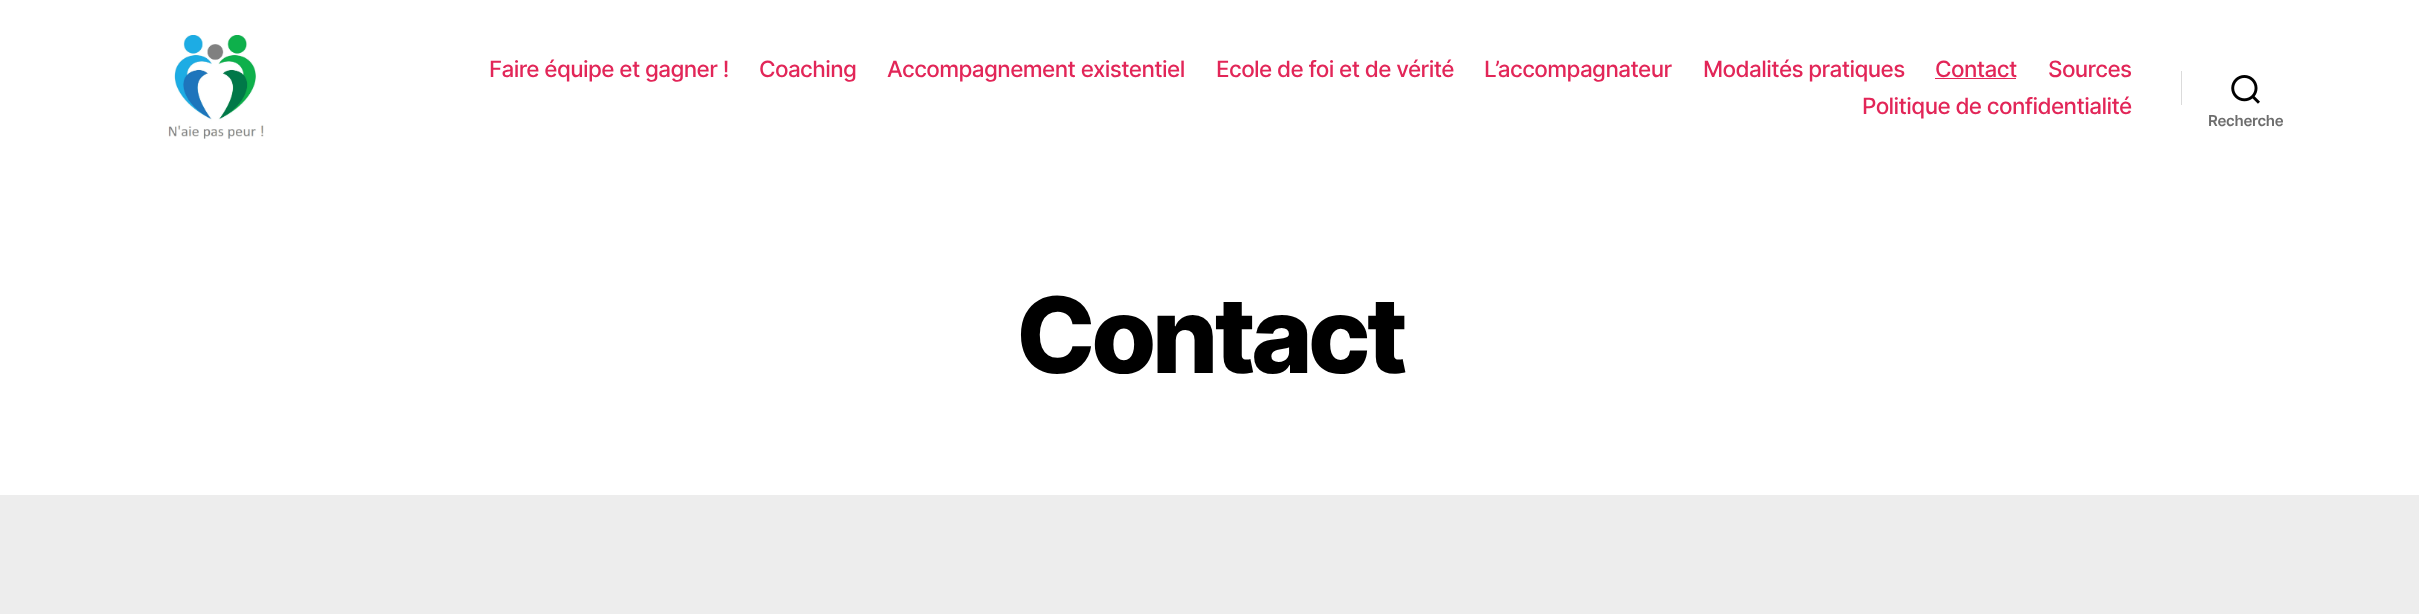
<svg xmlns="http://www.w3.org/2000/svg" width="2419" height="614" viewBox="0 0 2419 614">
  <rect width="100%" height="100%" fill="#ededed"/>
  <path d="M0 0h2419v495H0z" fill="#fff"/>
  <image x="168" y="35" width="96" height="104" href="img/1.png"/>
  <path d="M1935 78h81v1H1935z" fill="#e22658"/>
  <path d="M2181 71h1v34H2181z" fill="#dbdbdb"/>
  <image x="2231" y="75" width="29" height="29" href="img/2.png"/>
  <g font-family="Inter" font-size="22.5" font-weight="500" letter-spacing="-0.6" fill="#e22658">
    <text x="489" y="77">Faire équipe et gagner !</text>
    <text x="759" y="77">Coaching</text>
    <text x="887" y="77">Accompagnement existentiel</text>
    <text x="1216" y="77">Ecole de foi et de vérité</text>
    <text x="1484" y="77">L’accompagnateur</text>
    <text x="1703" y="77">Modalités pratiques</text>
    <text x="1935" y="77">Contact</text>
    <text x="2048" y="77">Sources</text>
    <text x="1862" y="114">Politique de confidentialité</text>
  </g>
  <text x="2208" y="126" font-family="Inter" font-size="15" font-weight="600" letter-spacing="-0.25" fill="#6d6d6d">Recherche</text>
  <text x="1016" y="373" font-family="Inter" font-size="105" font-weight="800" letter-spacing="-4.5" fill="#000">Contact</text>
</svg>
